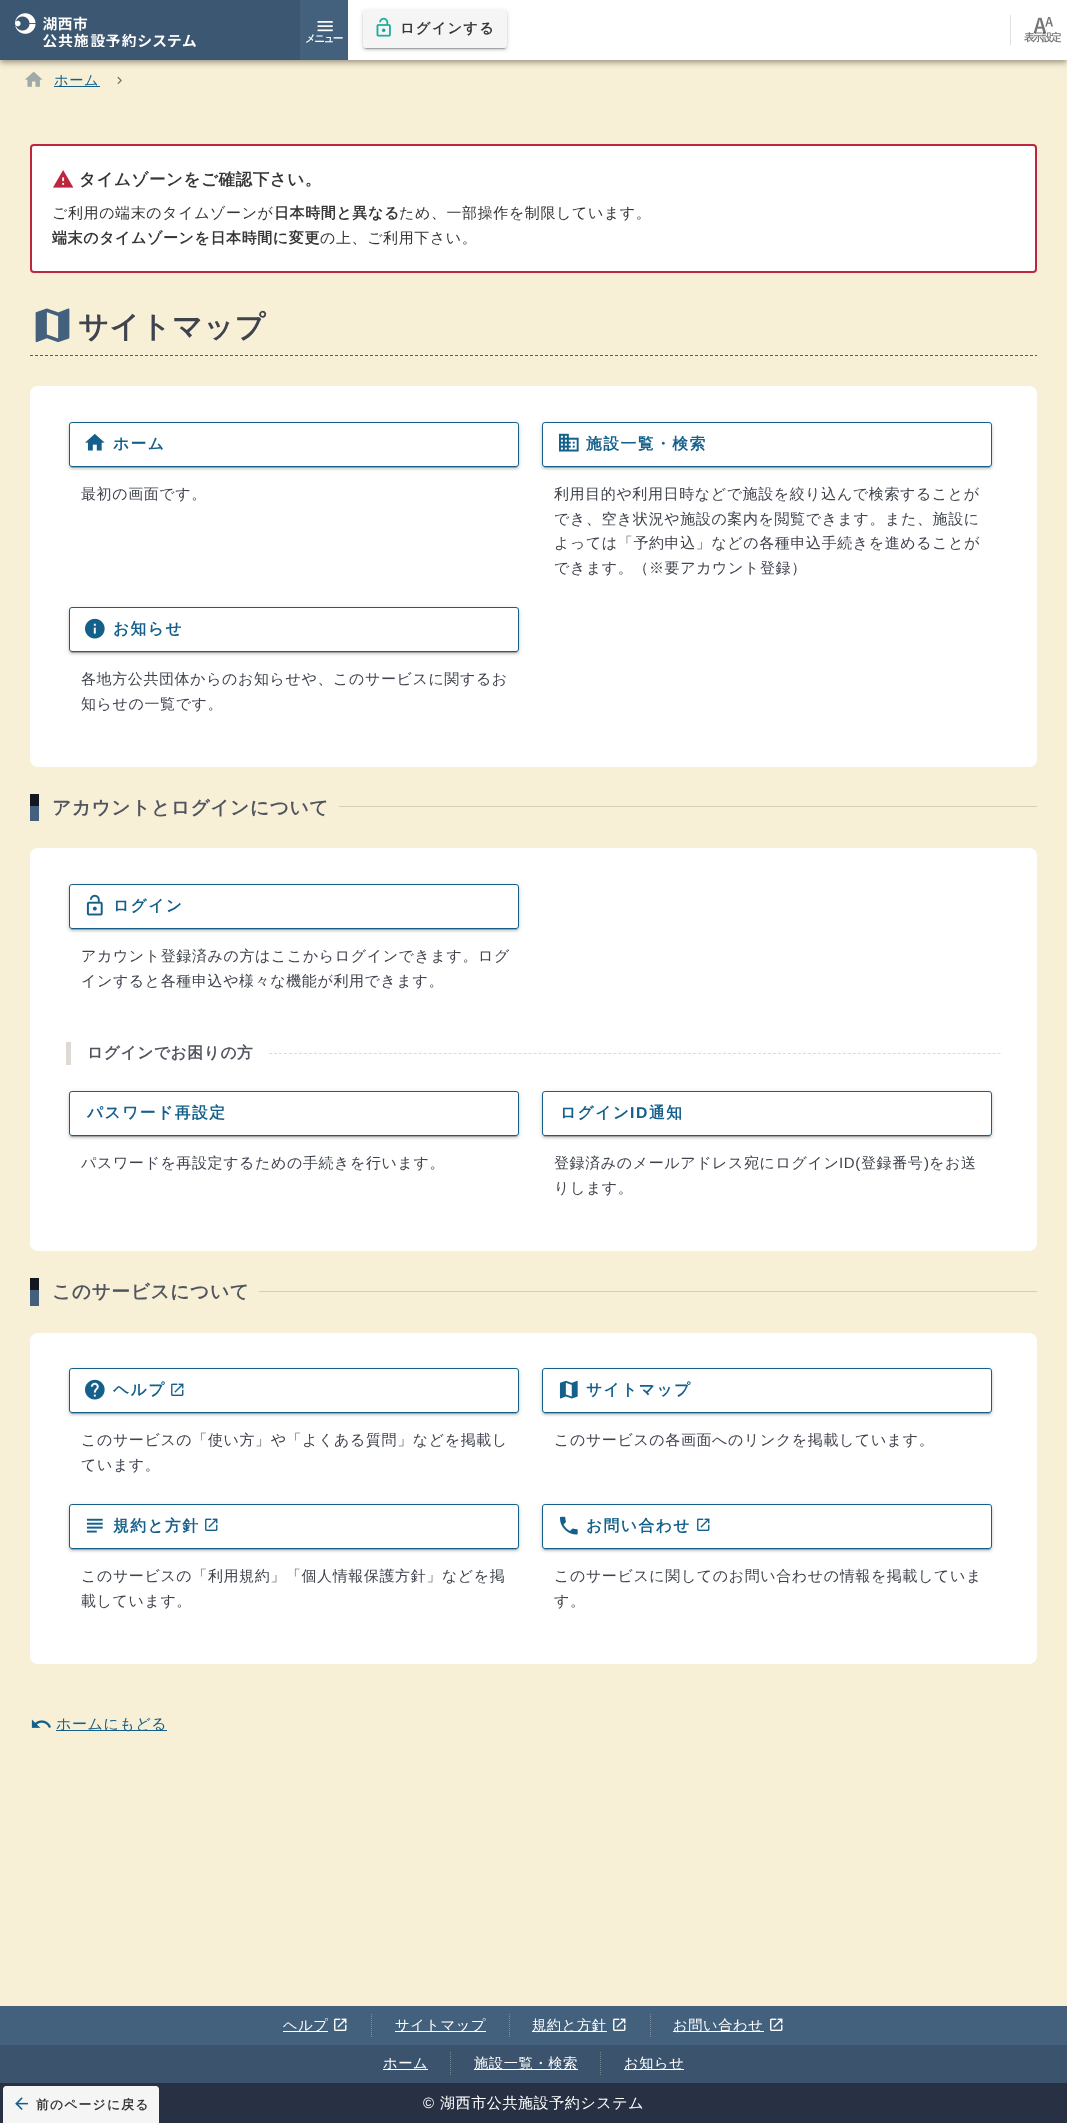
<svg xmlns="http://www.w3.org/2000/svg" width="1067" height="2123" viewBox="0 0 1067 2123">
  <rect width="100%" height="100%" fill="#f8f0d6"/>
  <image x="25" y="71" width="18" height="16" href="img/5.png"/>
  <image x="117" y="76" width="5" height="8" href="img/6.png"/>
  <path d="M0 1h1067v60H0z" fill="#0000001f" filter="blur(5px)"/>
  <path d="M0 4h1067v60H0z" fill="#00000024" filter="blur(2.5px)"/>
  <path d="M1 3h1065v58H1z" fill="#00000033" filter="blur(2px)"/>
  <path d="M348 0h719v60H348z" fill="#fff"/>
  <path d="M0 0h300v60H0z" fill="#3c5771"/>
  <image x="15" y="13" width="181" height="34" href="img/1.png"/>
  <path d="M300 0h48v60H300z" fill="#43617d"/>
  <image x="317" y="21" width="16" height="11" href="img/2.png"/>
  <rect x="363" y="11" width="144" height="38" rx="3" fill="#0000001f" filter="blur(2.5px)"/>
  <rect x="363" y="12" width="144" height="38" rx="3" fill="#00000024" filter="blur(1px)"/>
  <rect x="365" y="15" width="140" height="34" rx="1" fill="#00000033" filter="blur(0.5px)"/>
  <rect x="363" y="10" width="144" height="38" rx="3" fill="#f5f5f5"/>
  <image x="376" y="17" width="15" height="20" href="img/3.png"/>
  <path d="M1010 15h1v30H1010z" fill="#e5e0dc"/>
  <path d="M54 86h46v1H54z" fill="#15608b"/>
  <rect x="31" y="145" width="1005" height="127" rx="3" fill="#fff" stroke="#bc263e" stroke-width="2"/>
  <image x="53" y="170" width="21" height="18" href="img/7.png"/>
  <path d="M30 355.5H1037" fill="none" stroke="#43617d" stroke-dasharray="3 2"/>
  <image x="35" y="308" width="35" height="35" href="img/8.png"/>
  <rect x="30" y="386" width="1007" height="381" rx="8" fill="#fff"/>
  <rect x="69" y="423" width="450" height="45" rx="3" fill="#0000001f" filter="blur(2.5px)"/>
  <rect x="69" y="424" width="450" height="45" rx="3" fill="#00000024" filter="blur(1px)"/>
  <rect x="71" y="427" width="446" height="41" rx="1" fill="#00000033" filter="blur(0.5px)"/>
  <rect x="69.5" y="422.5" width="449" height="44" rx="2.5" fill="#fff" stroke="#15608b"/>
  <image x="85" y="433" width="20" height="18" href="img/9.png"/>
  <rect x="542" y="423" width="450" height="45" rx="3" fill="#0000001f" filter="blur(2.5px)"/>
  <rect x="542" y="424" width="450" height="45" rx="3" fill="#00000024" filter="blur(1px)"/>
  <rect x="544" y="427" width="446" height="41" rx="1" fill="#00000033" filter="blur(0.5px)"/>
  <rect x="542.5" y="422.5" width="449" height="44" rx="2.5" fill="#fff" stroke="#15608b"/>
  <image x="559" y="433" width="20" height="19" href="img/10.png"/>
  <rect x="69" y="608" width="450" height="45" rx="3" fill="#0000001f" filter="blur(2.5px)"/>
  <rect x="69" y="609" width="450" height="45" rx="3" fill="#00000024" filter="blur(1px)"/>
  <rect x="71" y="612" width="446" height="41" rx="1" fill="#00000033" filter="blur(0.5px)"/>
  <rect x="69.5" y="607.5" width="449" height="44" rx="2.5" fill="#fff" stroke="#15608b"/>
  <image x="85" y="618" width="20" height="21" href="img/11.png"/>
  <path d="M30 806h9v15H30z" fill="#43617d"/>
  <path d="M30 794h9v12H30z" fill="#131722"/>
  <path d="M339 806h698v1H339z" fill="#d9cdb4"/>
  <rect x="30" y="848" width="1007" height="403" rx="8" fill="#fff"/>
  <rect x="69" y="885" width="450" height="45" rx="3" fill="#0000001f" filter="blur(2.5px)"/>
  <rect x="69" y="886" width="450" height="45" rx="3" fill="#00000024" filter="blur(1px)"/>
  <rect x="71" y="889" width="446" height="41" rx="1" fill="#00000033" filter="blur(0.5px)"/>
  <rect x="69.5" y="884.5" width="449" height="44" rx="2.5" fill="#fff" stroke="#15608b"/>
  <image x="86" y="894" width="17" height="22" href="img/12.png"/>
  <path d="M66 1042h5v23H66z" fill="#dfd9d3"/>
  <path d="M269 1053.5H1001" fill="none" stroke="#dfd9d3" stroke-dasharray="3 1.99"/>
  <rect x="69" y="1092" width="450" height="45" rx="3" fill="#0000001f" filter="blur(2.5px)"/>
  <rect x="69" y="1093" width="450" height="45" rx="3" fill="#00000024" filter="blur(1px)"/>
  <rect x="71" y="1096" width="446" height="41" rx="1" fill="#00000033" filter="blur(0.5px)"/>
  <rect x="69.5" y="1091.5" width="449" height="44" rx="2.5" fill="#fff" stroke="#15608b"/>
  <rect x="542" y="1092" width="450" height="45" rx="3" fill="#0000001f" filter="blur(2.5px)"/>
  <rect x="542" y="1093" width="450" height="45" rx="3" fill="#00000024" filter="blur(1px)"/>
  <rect x="544" y="1096" width="446" height="41" rx="1" fill="#00000033" filter="blur(0.5px)"/>
  <rect x="542.5" y="1091.5" width="449" height="44" rx="2.5" fill="#fff" stroke="#15608b"/>
  <path d="M30 1290h9v16H30z" fill="#43617d"/>
  <path d="M30 1278h9v12H30z" fill="#131722"/>
  <path d="M259 1291h778v1H259z" fill="#d9cdb4"/>
  <rect x="30" y="1333" width="1007" height="331" rx="8" fill="#fff"/>
  <rect x="69" y="1369" width="450" height="45" rx="3" fill="#0000001f" filter="blur(2.5px)"/>
  <rect x="69" y="1370" width="450" height="45" rx="3" fill="#00000024" filter="blur(1px)"/>
  <rect x="71" y="1373" width="446" height="41" rx="1" fill="#00000033" filter="blur(0.5px)"/>
  <rect x="69.5" y="1368.5" width="449" height="44" rx="2.5" fill="#fff" stroke="#15608b"/>
  <image x="85" y="1379" width="20" height="21" href="img/13.png"/>
  <image x="171" y="1383" width="13" height="13" href="img/14.png"/>
  <rect x="542" y="1369" width="450" height="45" rx="3" fill="#0000001f" filter="blur(2.5px)"/>
  <rect x="542" y="1370" width="450" height="45" rx="3" fill="#00000024" filter="blur(1px)"/>
  <rect x="544" y="1373" width="446" height="41" rx="1" fill="#00000033" filter="blur(0.5px)"/>
  <rect x="542.5" y="1368.5" width="449" height="44" rx="2.5" fill="#fff" stroke="#15608b"/>
  <image x="559" y="1380" width="19" height="19" href="img/15.png"/>
  <rect x="69" y="1505" width="450" height="45" rx="3" fill="#0000001f" filter="blur(2.5px)"/>
  <rect x="69" y="1506" width="450" height="45" rx="3" fill="#00000024" filter="blur(1px)"/>
  <rect x="71" y="1509" width="446" height="41" rx="1" fill="#00000033" filter="blur(0.5px)"/>
  <rect x="69.5" y="1504.5" width="449" height="44" rx="2.5" fill="#fff" stroke="#15608b"/>
  <image x="86" y="1518" width="17" height="15" href="img/16.png"/>
  <image x="205" y="1518" width="13" height="13" href="img/14.png"/>
  <rect x="542" y="1505" width="450" height="45" rx="3" fill="#0000001f" filter="blur(2.5px)"/>
  <rect x="542" y="1506" width="450" height="45" rx="3" fill="#00000024" filter="blur(1px)"/>
  <rect x="544" y="1509" width="446" height="41" rx="1" fill="#00000033" filter="blur(0.5px)"/>
  <rect x="542.5" y="1504.5" width="449" height="44" rx="2.5" fill="#fff" stroke="#15608b"/>
  <image x="560" y="1516" width="18" height="19" href="img/17.png"/>
  <image x="697" y="1518" width="13" height="13" href="img/14.png"/>
  <image x="31" y="1719" width="20" height="9" href="img/18.png"/>
  <path d="M56 1730h111v1H56z" fill="#15608b"/>
  <path d="M0 2083h1067v40H0z" fill="#283143"/>
  <path d="M6 2086H156C157.5 2086 159 2087.5 159 2089V2123H3V2089C3 2087.5 4.5 2086 6 2086Z" fill="#f5f5f5"/>
  <image x="15" y="2097" width="13" height="13" href="img/19.png"/>
  <path d="M0 2006h1067v39H0z" fill="#43617d"/>
  <path d="M283 2031h45v1H283z" fill="#fff"/>
  <image x="334" y="2018" width="13" height="13" href="img/20.png"/>
  <path d="M371.5 2014V2037" fill="none" stroke="#7b90a4" stroke-dasharray="1 1"/>
  <path d="M395 2031h91v1H395z" fill="#fff"/>
  <path d="M509.5 2014V2037" fill="none" stroke="#7b90a4" stroke-dasharray="1 1"/>
  <path d="M532 2031h75v1H532z" fill="#fff"/>
  <image x="613" y="2018" width="13" height="13" href="img/20.png"/>
  <path d="M650.5 2014V2037" fill="none" stroke="#7b90a4" stroke-dasharray="1 1"/>
  <path d="M673 2031h91v1H673z" fill="#fff"/>
  <image x="770" y="2018" width="13" height="13" href="img/20.png"/>
  <path d="M0 2045h1067v38H0z" fill="#3b536c"/>
  <path d="M383 2069h45v1H383z" fill="#fff"/>
  <path d="M450.5 2052V2076" fill="none" stroke="#768798" stroke-dasharray="1 1"/>
  <path d="M474 2069h104v1H474z" fill="#fff"/>
  <path d="M600.5 2052V2076" fill="none" stroke="#768798" stroke-dasharray="1 1"/>
  <path d="M624 2069h60v1H624z" fill="#fff"/>
  <text x="305" y="42" font-family="WenQuanYi Zen Hei" font-size="10.5" font-weight="bold" letter-spacing="-1.5" fill="#fff">メニュー</text>
  <text x="400" y="33" font-family="WenQuanYi Zen Hei" font-size="14.25" font-weight="bold" letter-spacing="1.25" fill="#363535">ログインする</text>
  <text x="1024" y="41" font-family="WenQuanYi Zen Hei" font-size="10.5" font-weight="bold" letter-spacing="-1.5" fill="#757575">表示設定</text>
  <image x="1033" y="17" width="20" height="17" href="img/4.png"/>
  <text x="54" y="85" font-family="WenQuanYi Zen Hei" font-size="14.25" font-weight="500" letter-spacing="0.6" fill="#15608b">ホーム</text>
  <text x="79" y="185" font-family="WenQuanYi Zen Hei" font-size="16.5" font-weight="bold" letter-spacing="0.6" fill="#363535">タイムゾーンをご確認下さい。</text>
  <text x="52" y="218" font-family="WenQuanYi Zen Hei" font-size="15" font-weight="500" letter-spacing="0.6" fill="#363535">ご利用の端末のタイムゾーンが</text>
  <text x="274" y="218" font-family="WenQuanYi Zen Hei" font-size="15" font-weight="bold" letter-spacing="0.6" fill="#363535">日本時間と異なる</text>
  <text x="399" y="218" font-family="WenQuanYi Zen Hei" font-size="15" font-weight="500" letter-spacing="0.6" fill="#363535">ため、一部操作を制限しています。</text>
  <text x="52" y="243" font-family="WenQuanYi Zen Hei" font-size="15" font-weight="bold" letter-spacing="0.6" fill="#363535">端末のタイムゾーンを日本時間に変更</text>
  <text x="320" y="243" font-family="WenQuanYi Zen Hei" font-size="15" font-weight="500" letter-spacing="0.6" fill="#363535">の上、ご利用下さい。</text>
  <text x="78" y="337" font-family="WenQuanYi Zen Hei" font-size="30" font-weight="bold" letter-spacing="0.6" fill="#3f434d">サイトマップ</text>
  <text x="113" y="449" font-family="WenQuanYi Zen Hei" font-size="15.75" font-weight="bold" letter-spacing="1.5" fill="#15608b">ホーム</text>
  <text x="81" y="499" font-family="WenQuanYi Zen Hei" font-size="15" font-weight="500" letter-spacing="0.6" fill="#3f434d">最初の画面です。</text>
  <text x="586" y="449" font-family="WenQuanYi Zen Hei" font-size="15.75" font-weight="bold" letter-spacing="1.5" fill="#15608b">施設一覧・検索</text>
  <g font-family="WenQuanYi Zen Hei" font-size="15" font-weight="500" letter-spacing="0.6" fill="#3f434d">
    <text x="554" y="499">利用目的や利用日時などで施設を絞り込んで検索することが</text>
    <text x="554" y="524">でき、空き状況や施設の案内を閲覧できます。また、施設に</text>
    <text x="554" y="548">よっては「予約申込」などの各種申込手続きを進めることが</text>
    <text x="554" y="573">できます。（※要アカウント登録）</text>
  </g>
  <text x="113" y="634" font-family="WenQuanYi Zen Hei" font-size="15.75" font-weight="bold" letter-spacing="1.5" fill="#15608b">お知らせ</text>
  <g font-family="WenQuanYi Zen Hei" font-size="15" font-weight="500" letter-spacing="0.6" fill="#3f434d">
    <text x="81" y="684">各地方公共団体からのお知らせや、このサービスに関するお</text>
    <text x="81" y="709">知らせの一覧です。</text>
  </g>
  <text x="52" y="814" font-family="WenQuanYi Zen Hei" font-size="18.75" font-weight="bold" letter-spacing="0.6" fill="#51555f">アカウントとログインについて</text>
  <text x="113" y="911" font-family="WenQuanYi Zen Hei" font-size="15.75" font-weight="bold" letter-spacing="1.5" fill="#15608b">ログイン</text>
  <g font-family="WenQuanYi Zen Hei" font-size="15" font-weight="500" letter-spacing="0.6" fill="#3f434d">
    <text x="81" y="961">アカウント登録済みの方はここからログインできます。ログ</text>
    <text x="81" y="986">インすると各種申込や様々な機能が利用できます。</text>
  </g>
  <text x="87" y="1058" font-family="WenQuanYi Zen Hei" font-size="15.75" font-weight="bold" letter-spacing="0.6" fill="#51555f">ログインでお困りの方</text>
  <text x="87" y="1118" font-family="WenQuanYi Zen Hei" font-size="15.75" font-weight="bold" letter-spacing="1.5" fill="#15608b">パスワード再設定</text>
  <text x="81" y="1168" font-family="WenQuanYi Zen Hei" font-size="15" font-weight="500" letter-spacing="0.6" fill="#3f434d">パスワードを再設定するための手続きを行います。</text>
  <text x="560" y="1118" font-family="WenQuanYi Zen Hei" font-size="15.75" font-weight="bold" letter-spacing="1.5" fill="#15608b">ログイン</text>
  <text x="630" y="1118" font-family="Liberation Sans" font-size="15.75" font-weight="bold" letter-spacing="1.5" fill="#15608b">ID</text>
  <text x="649" y="1118" font-family="WenQuanYi Zen Hei" font-size="15.75" font-weight="bold" letter-spacing="1.5" fill="#15608b">通知</text>
  <text x="554" y="1168" font-family="WenQuanYi Zen Hei" font-size="15" font-weight="500" letter-spacing="0.6" fill="#3f434d">登録済みのメールアドレス宛にログイン</text>
  <text x="839" y="1168" font-family="Liberation Sans" font-size="15" letter-spacing="0.6" fill="#3f434d">ID(</text>
  <text x="861" y="1168" font-family="WenQuanYi Zen Hei" font-size="15" font-weight="500" letter-spacing="0.6" fill="#3f434d">登録番号</text>
  <text x="924" y="1168" font-family="Liberation Sans" font-size="15" letter-spacing="0.6" fill="#3f434d">)</text>
  <g font-family="WenQuanYi Zen Hei" font-size="15" font-weight="500" letter-spacing="0.6" fill="#3f434d">
    <text x="929" y="1168">をお送</text>
    <text x="554" y="1193">りします。</text>
  </g>
  <text x="52" y="1298" font-family="WenQuanYi Zen Hei" font-size="18.75" font-weight="bold" letter-spacing="0.6" fill="#51555f">このサービスについて</text>
  <text x="113" y="1395" font-family="WenQuanYi Zen Hei" font-size="15.75" font-weight="bold" letter-spacing="1.5" fill="#15608b">ヘルプ</text>
  <g font-family="WenQuanYi Zen Hei" font-size="15" font-weight="500" letter-spacing="0.6" fill="#3f434d">
    <text x="81" y="1445">このサービスの「使い方」や「よくある質問」などを掲載し</text>
    <text x="81" y="1470">ています。</text>
  </g>
  <text x="586" y="1395" font-family="WenQuanYi Zen Hei" font-size="15.75" font-weight="bold" letter-spacing="1.5" fill="#15608b">サイトマップ</text>
  <text x="554" y="1445" font-family="WenQuanYi Zen Hei" font-size="15" font-weight="500" letter-spacing="0.6" fill="#3f434d">このサービスの各画面へのリンクを掲載しています。</text>
  <text x="113" y="1531" font-family="WenQuanYi Zen Hei" font-size="15.75" font-weight="bold" letter-spacing="1.5" fill="#15608b">規約と方針</text>
  <g font-family="WenQuanYi Zen Hei" font-size="15" font-weight="500" letter-spacing="0.6" fill="#3f434d">
    <text x="81" y="1581">このサービスの「利用規約」「個人情報保護方針」などを掲</text>
    <text x="81" y="1606">載しています。</text>
  </g>
  <text x="586" y="1531" font-family="WenQuanYi Zen Hei" font-size="15.75" font-weight="bold" letter-spacing="1.5" fill="#15608b">お問い合わせ</text>
  <g font-family="WenQuanYi Zen Hei" font-size="15" font-weight="500" letter-spacing="0.6" fill="#3f434d">
    <text x="554" y="1581">このサービスに関してのお問い合わせの情報を掲載していま</text>
    <text x="554" y="1606">す。</text>
  </g>
  <text x="56" y="1729" font-family="WenQuanYi Zen Hei" font-size="15" font-weight="500" letter-spacing="0.6" fill="#15608b">ホームにもどる</text>
  <text x="36" y="2109" font-family="WenQuanYi Zen Hei" font-size="12.75" font-weight="bold" letter-spacing="1.25" fill="#363535">前のページに戻る</text>
  <g font-family="WenQuanYi Zen Hei" font-size="14.25" font-weight="500" letter-spacing="0.6" fill="#fff">
    <text x="283" y="2030">ヘルプ</text>
    <text x="395" y="2030">サイトマップ</text>
    <text x="532" y="2030">規約と方針</text>
    <text x="673" y="2030">お問い合わせ</text>
    <text x="383" y="2068">ホーム</text>
    <text x="474" y="2068">施設一覧・検索</text>
    <text x="624" y="2068">お知らせ</text>
  </g>
  <text x="423" y="2108" font-family="Liberation Sans" font-size="15" letter-spacing="0.6" fill="#fff">©</text>
  <text x="440" y="2108" font-family="WenQuanYi Zen Hei" font-size="15" font-weight="500" letter-spacing="0.6" fill="#fff">湖西市公共施設予約システム</text>
</svg>
